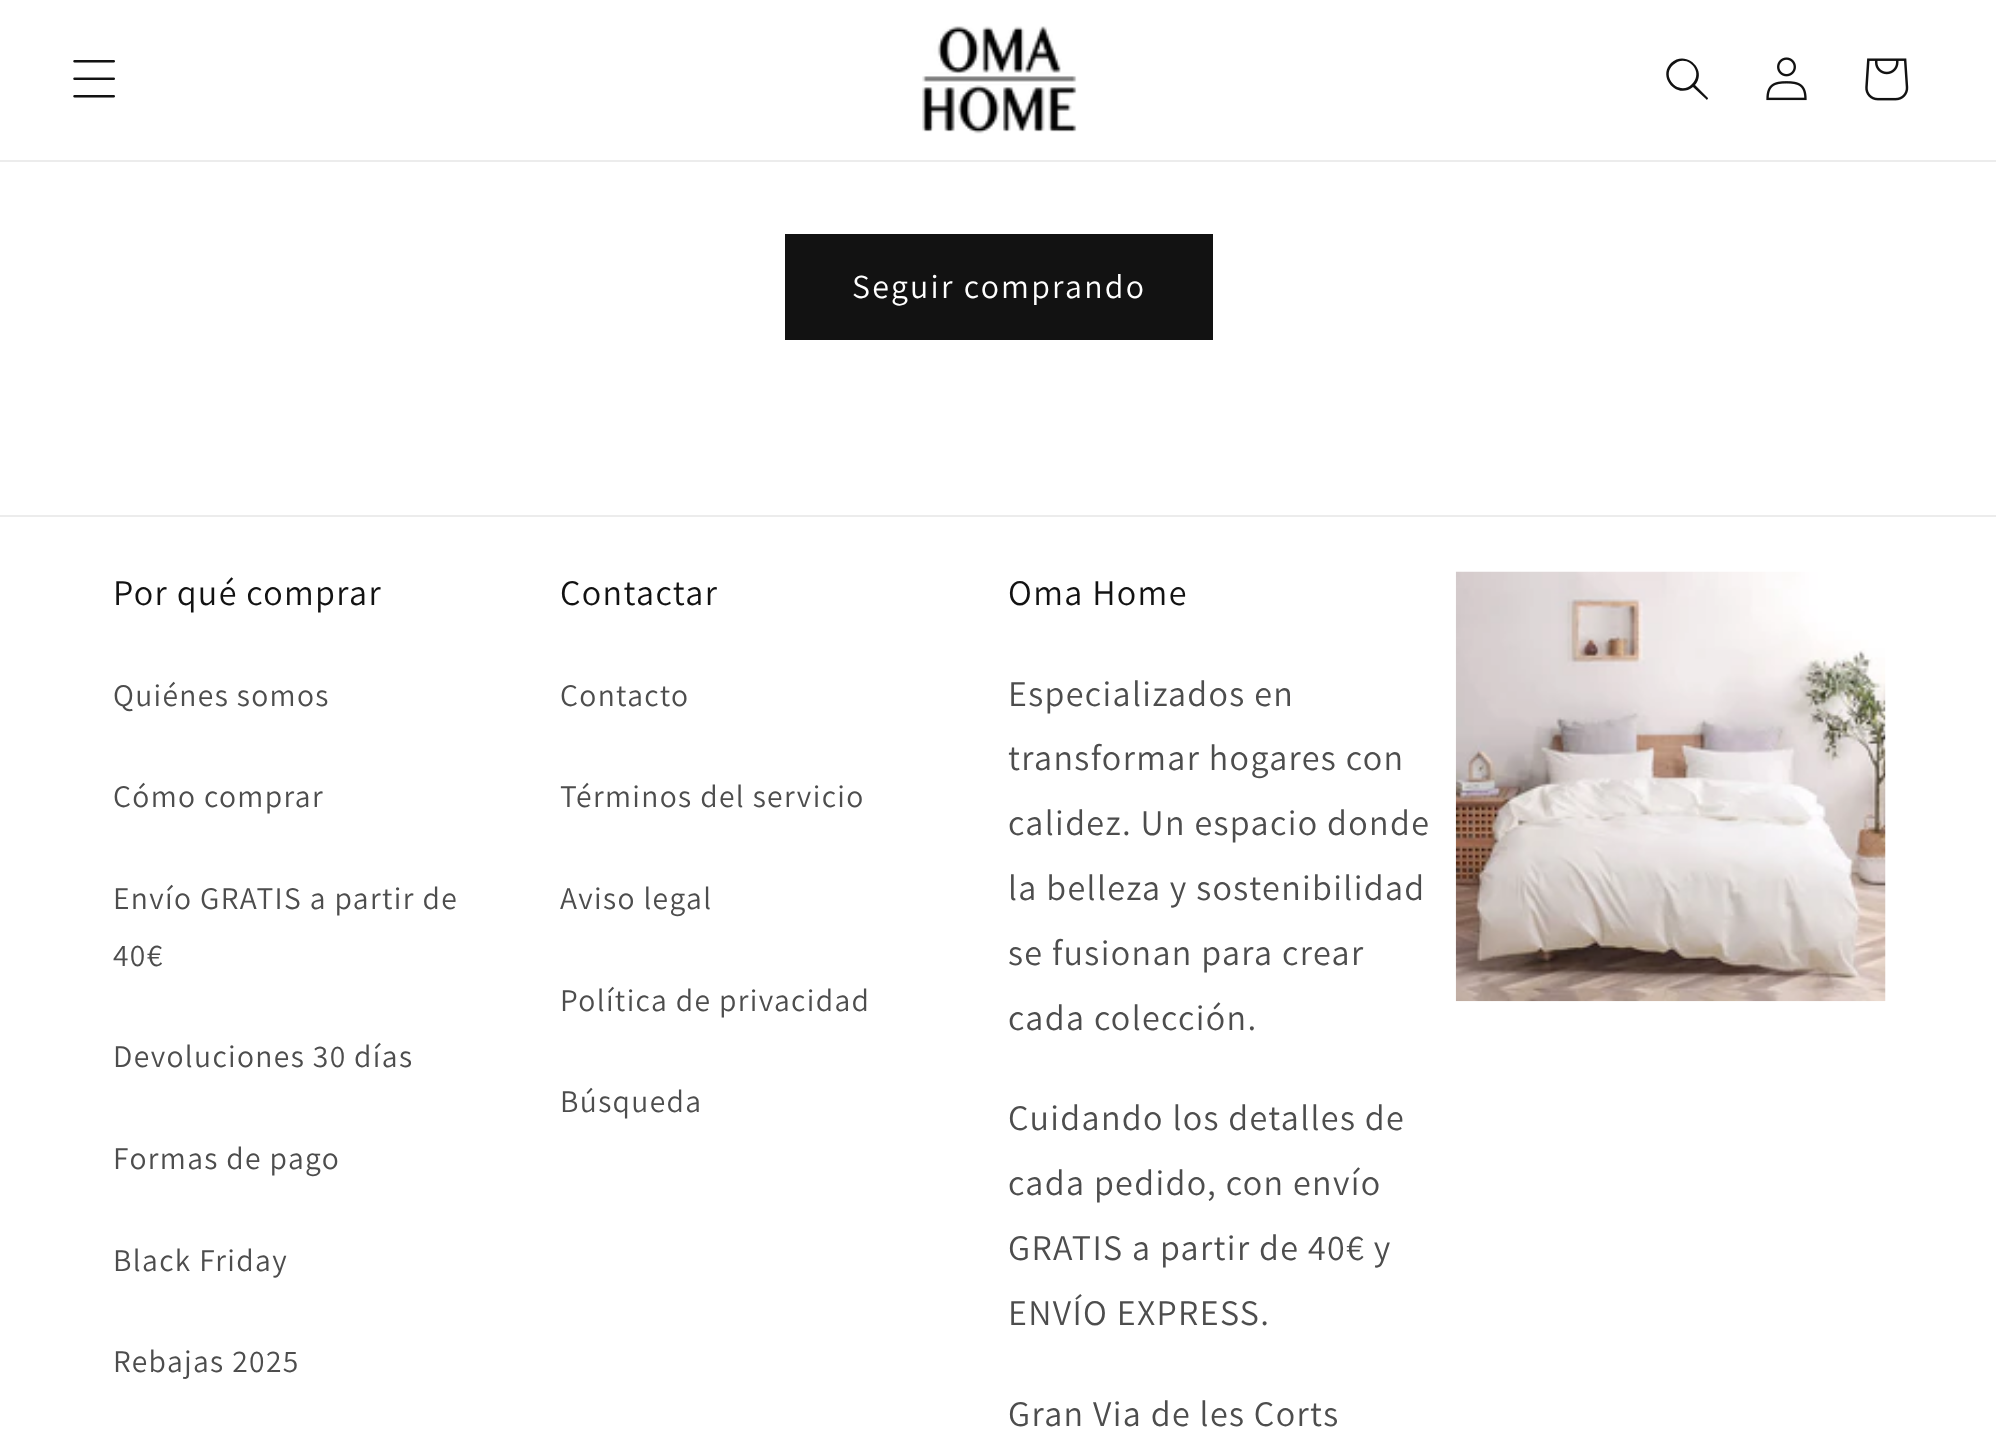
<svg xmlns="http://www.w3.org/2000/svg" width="1996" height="1431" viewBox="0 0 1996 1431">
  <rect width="100%" height="100%" fill="#fff"/>
  <path d="M0 160h1996v2H0z" fill="#ececec"/>
  <image x="73" y="60" width="42" height="38" href="img/1.png"/>
  <image x="922" y="26" width="155" height="108" href="img/2.png"/>
  <path d="M1692 84C1680 97 1660 77 1673 65C1686 52 1705 71 1692 84M1693 87C1677 100 1657 77 1671 63C1686 49 1708 70 1695 85L1708 98C1708 100 1706 100 1706 99Z" fill="#121212" fill-rule="evenodd"/>
  <image x="1766" y="57" width="41" height="44" href="img/3.png"/>
  <image x="1865" y="58" width="44" height="43" href="img/4.png"/>
  <path d="M785 234h428v106H785z" fill="#121212"/>
  <path d="M0 515h1996v2H0z" fill="#ececec"/>
  <image x="1455" y="571" width="431" height="431" href="img/5.png"/>
  <text x="852" y="298" font-family="Assistant" font-size="33.75" letter-spacing="2.25" fill="#fff">Seguir comprando</text>
  <text x="113" y="605" font-family="Assistant" font-size="36" letter-spacing="1.35" fill="#121212">Por qué comprar</text>
  <g font-family="Assistant" font-size="31.5" letter-spacing="1.35" fill="#4d4d4d">
    <text x="113" y="706">Quiénes somos</text>
    <text x="113" y="807">Cómo comprar</text>
    <text x="113" y="909">Envío GRATIS a partir de</text>
    <text x="113" y="966">40€</text>
    <text x="113" y="1067">Devoluciones 30 días</text>
    <text x="113" y="1169">Formas de pago</text>
    <text x="113" y="1271">Black Friday</text>
    <text x="113" y="1372">Rebajas 2025</text>
  </g>
  <text x="560" y="605" font-family="Assistant" font-size="36" letter-spacing="1.35" fill="#121212">Contactar</text>
  <g font-family="Assistant" font-size="31.5" letter-spacing="1.35" fill="#4d4d4d">
    <text x="560" y="706">Contacto</text>
    <text x="560" y="807">Términos del servicio</text>
    <text x="560" y="909">Aviso legal</text>
    <text x="560" y="1011">Política de privacidad</text>
    <text x="560" y="1112">Búsqueda</text>
  </g>
  <text x="1008" y="605" font-family="Assistant" font-size="36" letter-spacing="1.35" fill="#121212">Oma Home</text>
  <g font-family="Assistant" font-size="36" letter-spacing="1.35" fill="#4d4d4d">
    <text x="1008" y="706">Especializados en</text>
    <text x="1008" y="770">transformar hogares con</text>
    <text x="1008" y="835">calidez. Un espacio donde</text>
    <text x="1008" y="900">la belleza y sostenibilidad</text>
    <text x="1008" y="965">se fusionan para crear</text>
    <text x="1008" y="1030">cada colección.</text>
    <text x="1008" y="1130">Cuidando los detalles de</text>
    <text x="1008" y="1195">cada pedido, con envío</text>
    <text x="1008" y="1260">GRATIS a partir de 40€ y</text>
    <text x="1008" y="1325">ENVÍO EXPRESS.</text>
    <text x="1008" y="1426">Gran Via de les Corts</text>
  </g>
</svg>
